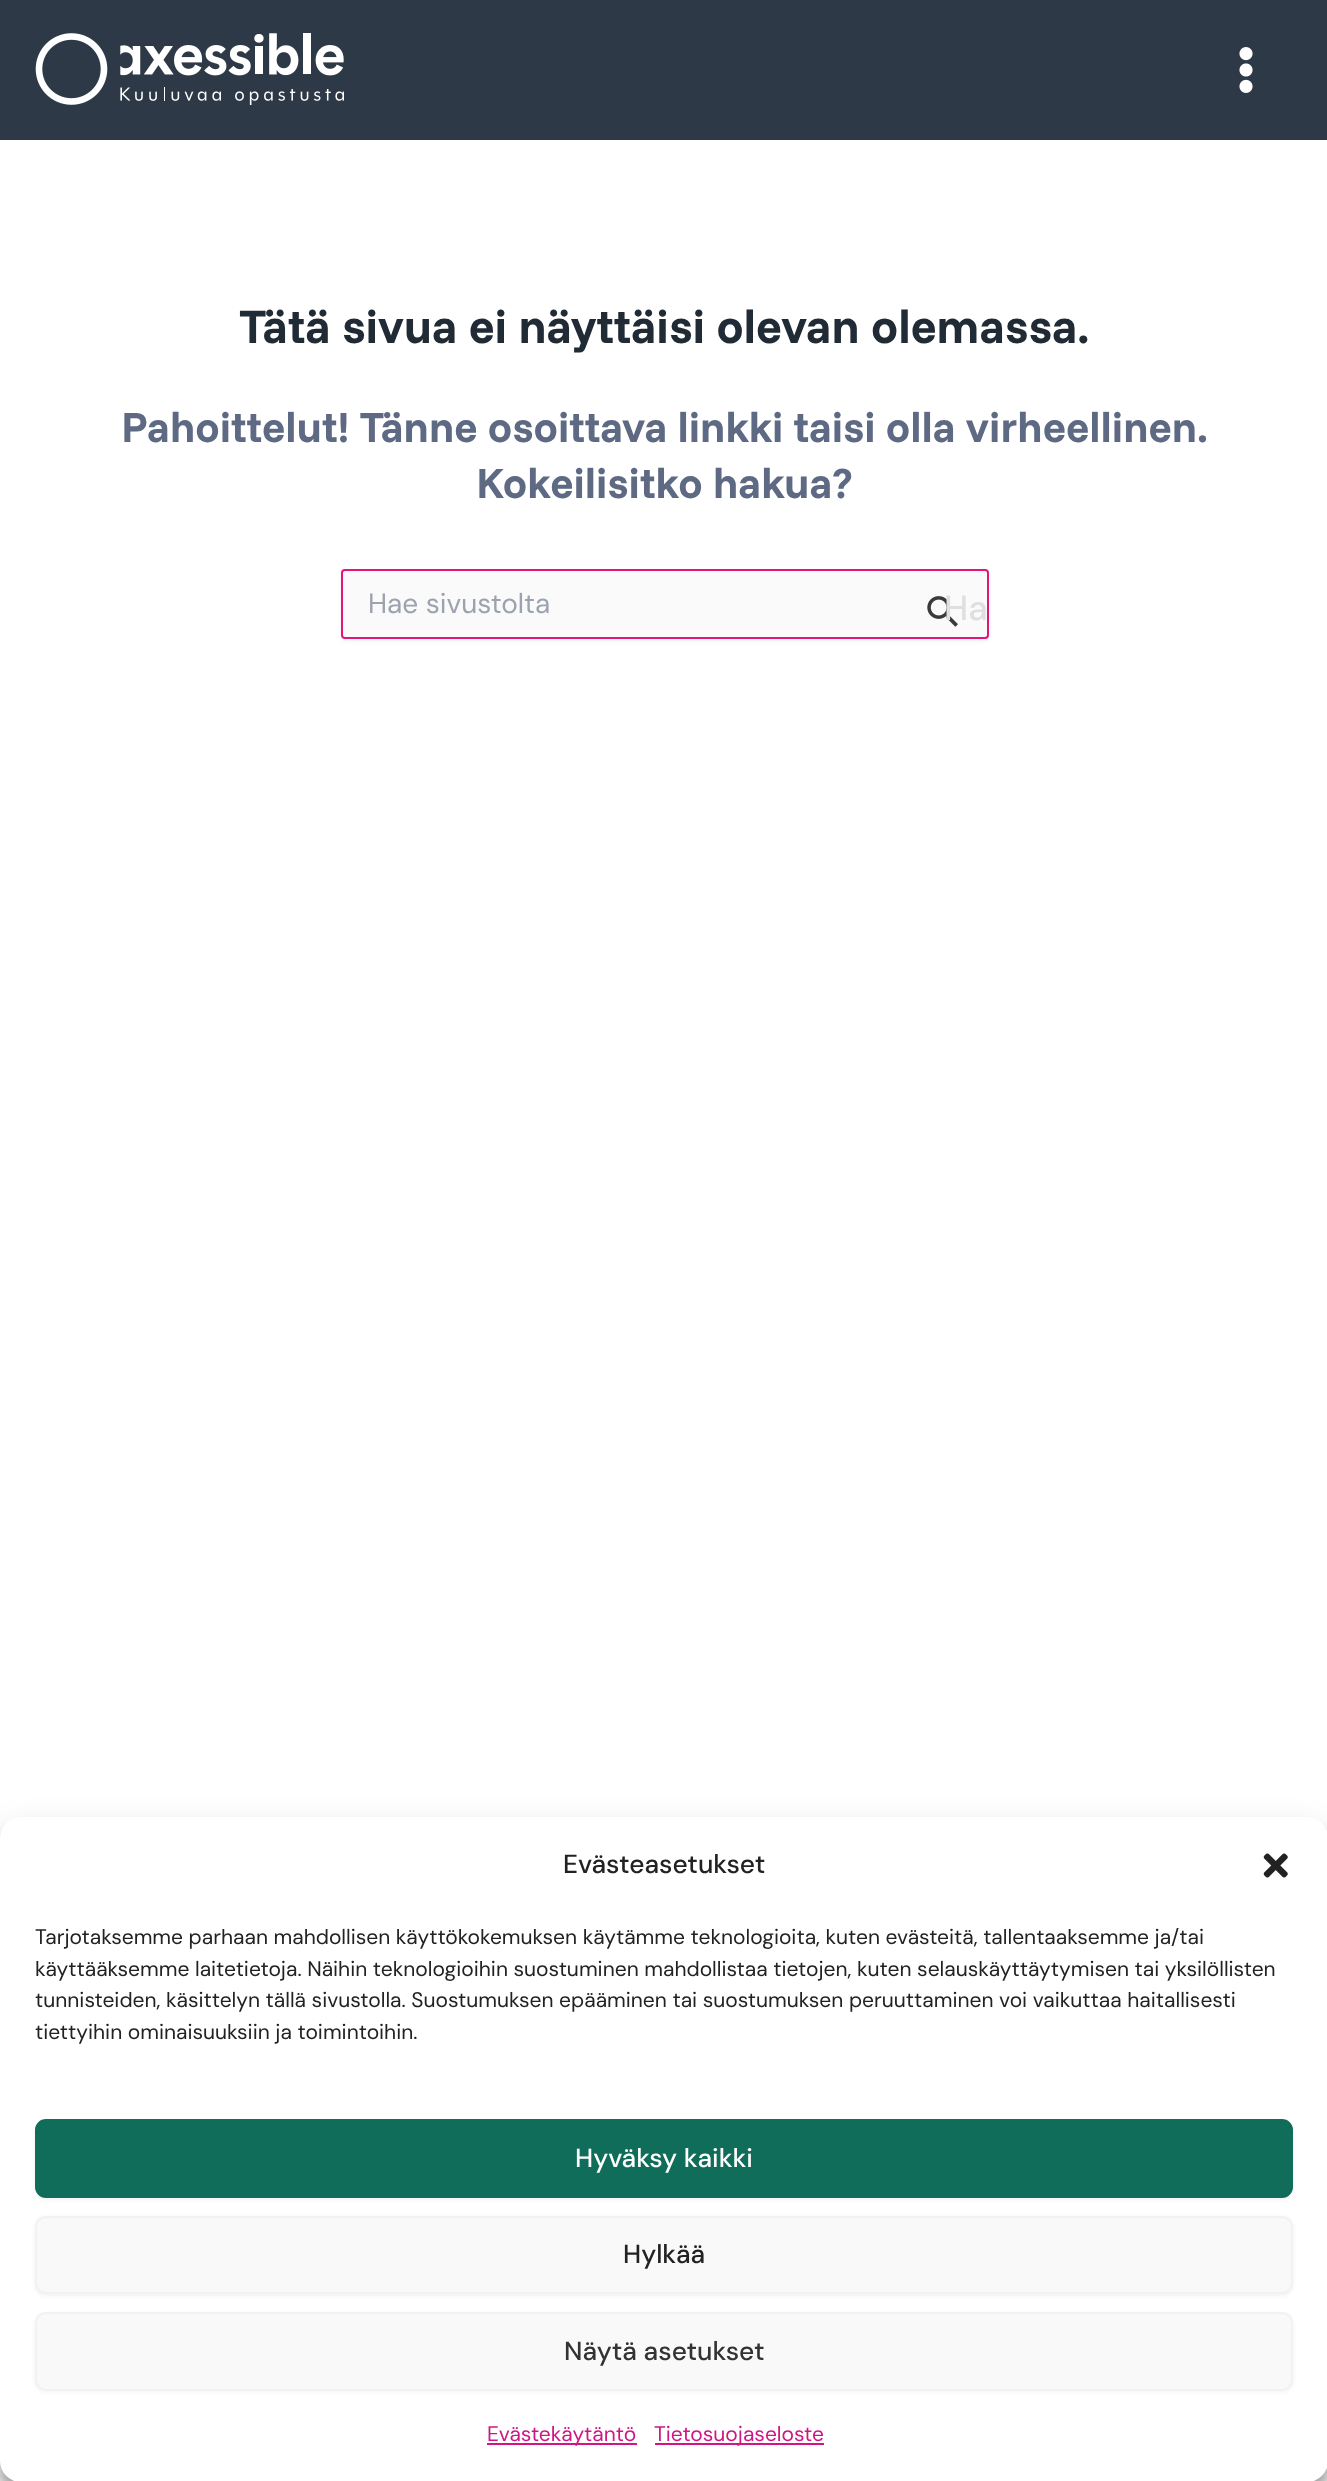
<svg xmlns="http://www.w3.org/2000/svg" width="1327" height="2481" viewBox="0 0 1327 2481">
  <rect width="100%" height="100%" fill="#fff"/>
  <path d="M0 0h1327v140H0z" fill="#2e3947"/>
  <image x="35" y="33" width="309" height="72" href="img/1.png"/>
  <image x="1239" y="47" width="14" height="46" href="img/2.png"/>
  <rect x="341" y="571" width="648" height="70" rx="4" fill="#0000000d" filter="blur(2px)"/>
  <rect x="342" y="570" width="646" height="68" rx="3" fill="#fafafa" stroke="#e31678" stroke-width="2"/>
  <image x="927" y="596" width="31" height="31" href="img/3.png"/>
  <path d="M0 2461h1327v20H0z" fill="#f9f9f9"/>
  <rect y="1827" width="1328" height="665" rx="21" fill="#0000003b" filter="blur(5px)"/>
  <rect y="1834" width="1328" height="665" rx="21" fill="#00000030" filter="blur(17.5px)"/>
  <rect y="1817" width="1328" height="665" rx="21" fill="#fff"/>
  <image x="1263" y="1853" width="25" height="25" href="img/4.png"/>
  <rect x="35" y="2121" width="1258" height="79" rx="11" fill="#0000000d" filter="blur(2px)"/>
  <rect x="36" y="2120" width="1256" height="77" rx="10" fill="#0f6d59" stroke="#0f6d59" stroke-width="2"/>
  <rect x="35" y="2217" width="1258" height="79" rx="11" fill="#0000000d" filter="blur(2px)"/>
  <rect x="36" y="2217" width="1256" height="76" rx="10" fill="#f9f9f9" stroke="#f2f2f2" stroke-width="2"/>
  <rect x="35" y="2314" width="1258" height="78" rx="11" fill="#0000000d" filter="blur(2px)"/>
  <rect x="36" y="2313" width="1256" height="77" rx="10" fill="#f9f9f9" stroke="#f2f2f2" stroke-width="2"/>
  <path d="M487 2443h150v2H487z" fill="#d01684"/>
  <path d="M655 2443h169v2H655z" fill="#d01684"/>
  <text x="239" y="343" font-family="Funnel Sans" font-size="47.9" font-weight="300" fill="#212b36">Tätä sivua ei näyttäisi olevan olemassa.</text>
  <g font-family="Funnel Sans" font-size="43.1" font-weight="300" fill="#5e6a83">
    <text x="121" y="442">Pahoittelut! Tänne osoittava linkki taisi olla virheellinen.</text>
    <text x="476" y="498">Kokeilisitko hakua?</text>
  </g>
  <text x="368" y="613" font-family="DM Sans" font-size="28" fill="#9ca3af">Hae sivustolta</text>
  <text x="944" y="620" font-family="DM Sans" font-size="35" font-weight="500" fill="#dfdfdf">Ha</text>
  <text x="563" y="1873" font-family="DM Sans" font-size="26.25" font-weight="500" fill="#222">Evästeasetukset</text>
  <g font-family="DM Sans" font-size="21" fill="#222">
    <text x="35" y="1944">Tarjotaksemme parhaan mahdollisen käyttökokemuksen käytämme teknologioita, kuten evästeitä, tallentaaksemme ja/tai</text>
    <text x="35" y="1976">käyttääksemme laitetietoja. Näihin teknologioihin suostuminen mahdollistaa tietojen, kuten selauskäyttäytymisen tai yksilöllisten</text>
    <text x="35" y="2007">tunnisteiden, käsittelyn tällä sivustolla. Suostumuksen epääminen tai suostumuksen peruuttaminen voi vaikuttaa haitallisesti</text>
    <text x="35" y="2039">tiettyihin ominaisuuksiin ja toimintoihin.</text>
  </g>
  <text x="575" y="2167" font-family="DM Sans" font-size="26.25" font-weight="500" fill="#fff">Hyväksy kaikki</text>
  <text x="623" y="2263" font-family="DM Sans" font-size="26.25" font-weight="500" fill="#222">Hylkää</text>
  <text x="564" y="2360" font-family="DM Sans" font-size="26.25" font-weight="500" fill="#333">Näytä asetukset</text>
  <g font-family="DM Sans" font-size="21" fill="#d01684">
    <text x="487" y="2441">Evästekäytäntö</text>
    <text x="654" y="2441">Tietosuojaseloste</text>
  </g>
</svg>
